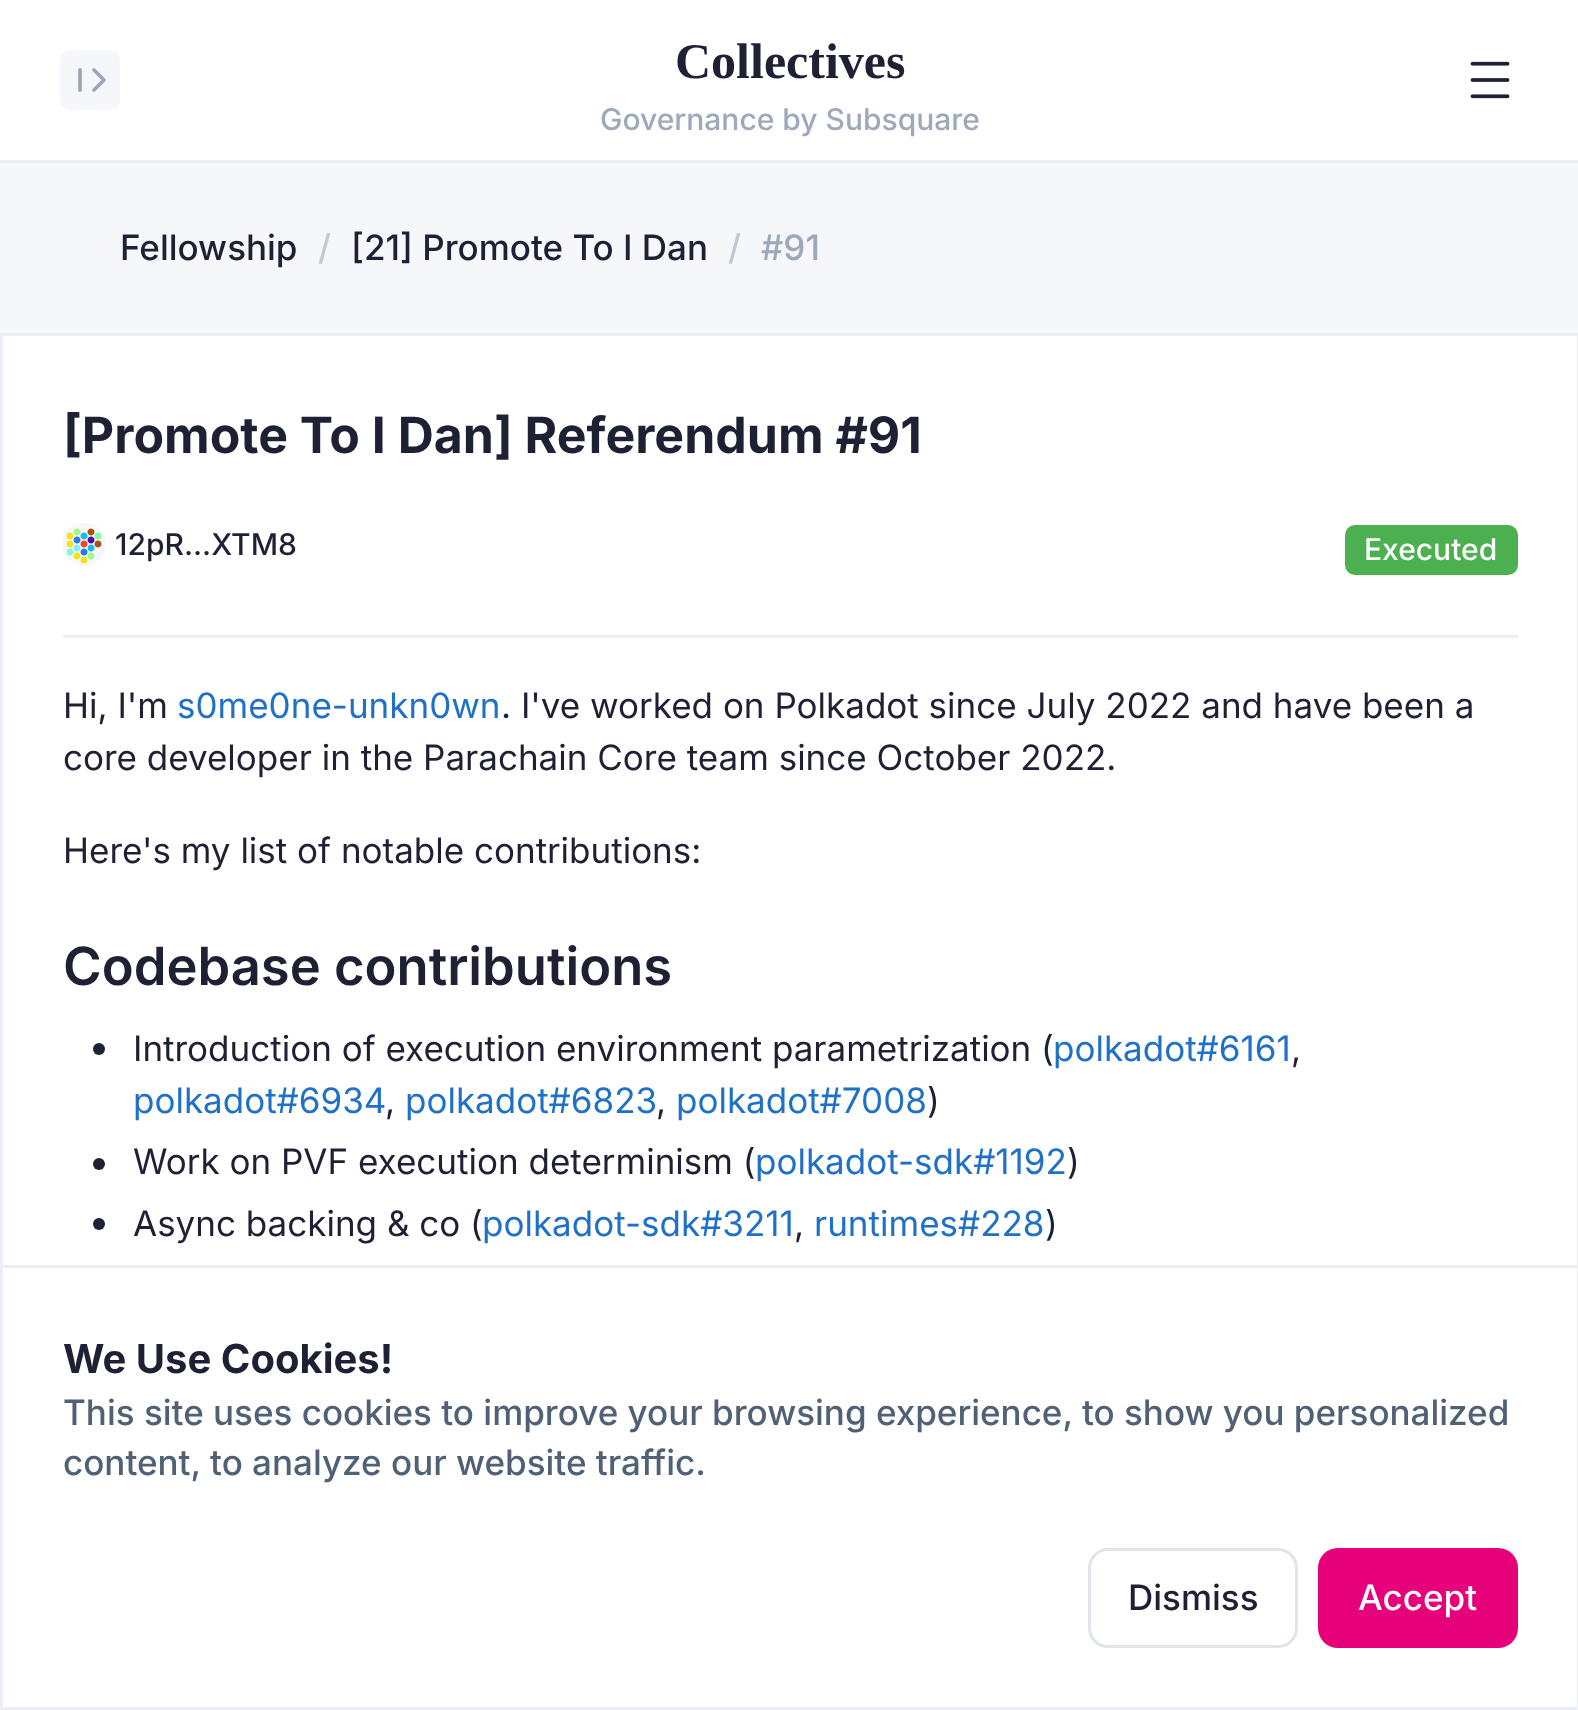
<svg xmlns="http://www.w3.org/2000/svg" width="1578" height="1710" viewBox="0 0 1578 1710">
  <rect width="100%" height="100%" fill="#f6f7fa"/>
  <path d="M0 0h1578v160H0z" fill="#fff"/>
  <path d="M0 160h1578v3H0z" fill="#ebeef4"/>
  <rect x="60" y="50" width="60" height="60" rx="10" fill="#f6f7fa"/>
  <path d="M94 90L104 80L94 70M80 90V70" fill="none" stroke="#9da9bb" stroke-width="3.8" stroke-linecap="round" stroke-linejoin="round"/>
  <image x="1470" y="61" width="40" height="38" href="img/1.png"/>
  <path d="M3 336h1574v929H3z" fill="#fff"/>
  <path d="M1.5 334.5h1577v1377H1.5z" fill="none" stroke="#ebeef4" stroke-width="3"/>
  <image x="63" y="523" width="42" height="43" href="img/2.png"/>
  <rect x="1345" y="525" width="173" height="50" rx="10" fill="#4caf50"/>
  <path d="M63 635h1455v3H63z" fill="#ebeef4"/>
  <circle cx="99" cy="1049" r="6" fill="#1e2134"/>
  <circle cx="99" cy="1164" r="6" fill="#1e2134"/>
  <circle cx="99" cy="1224" r="6" fill="#1e2134"/>
  <path d="M1.5 1266.5h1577v442H1.5z" fill="#fff" stroke="#ebeef4" stroke-width="3"/>
  <rect x="1089.5" y="1549.5" width="207" height="97" rx="18.5" fill="none" stroke="#e0e4eb" stroke-width="3"/>
  <rect x="1318" y="1548" width="200" height="100" rx="20" fill="#e6007a"/>
  <text x="675" y="78" font-family="Liberation Serif" font-size="50" font-weight="bold" fill="#1e2134">Collectives</text>
  <text x="600" y="130" font-family="Inter" font-size="30" font-weight="500" fill="#9da9bb">Governance by Subsquare</text>
  <text x="120" y="260" font-family="Inter" font-size="35" font-weight="500" fill="#1e2134">Fellowship</text>
  <text x="318" y="260" font-family="Inter" font-size="35" font-weight="500" fill="#c2c8d4">/</text>
  <text x="351" y="260" font-family="Inter" font-size="35" font-weight="500" fill="#1e2134">[21] Promote To I Dan</text>
  <text x="728" y="260" font-family="Inter" font-size="35" font-weight="500" fill="#c2c8d4">/</text>
  <text x="761" y="260" font-family="Inter" font-size="35" font-weight="500" fill="#9da9bb">#91</text>
  <text x="63" y="453" font-family="Inter" font-size="50" font-weight="bold" fill="#1e2134">[Promote To I Dan] Referendum #91</text>
  <text x="115" y="555" font-family="Inter" font-size="30" font-weight="500" fill="#1e2134">12pR...XTM8</text>
  <text x="1364" y="560" font-family="Inter" font-size="30" font-weight="500" fill="#fff">Executed</text>
  <text x="63" y="718" font-family="Inter" font-size="35" fill="#1e2134">Hi, I'm</text>
  <text x="177" y="718" font-family="Inter" font-size="35" fill="#1f70c7">s0me0ne-unkn0wn</text>
  <g font-family="Inter" font-size="35" fill="#1e2134">
    <text x="501" y="718">. I've worked on Polkadot since July 2022 and have been a</text>
    <text x="63" y="770">core developer in the Parachain Core team since October 2022.</text>
    <text x="63" y="863">Here's my list of notable contributions:</text>
  </g>
  <text x="63" y="985" font-family="Inter" font-size="52.5" font-weight="600" fill="#1e2134">Codebase contributions</text>
  <text x="133" y="1061" font-family="Inter" font-size="35" fill="#1e2134">Introduction of execution environment parametrization (</text>
  <text x="1053" y="1061" font-family="Inter" font-size="35" fill="#1f70c7">polkadot#6161</text>
  <text x="1291" y="1061" font-family="Inter" font-size="35" fill="#1e2134">,</text>
  <text x="133" y="1113" font-family="Inter" font-size="35" fill="#1f70c7">polkadot#6934</text>
  <text x="385" y="1113" font-family="Inter" font-size="35" fill="#1e2134">,</text>
  <text x="405" y="1113" font-family="Inter" font-size="35" fill="#1f70c7">polkadot#6823</text>
  <text x="656" y="1113" font-family="Inter" font-size="35" fill="#1e2134">,</text>
  <text x="676" y="1113" font-family="Inter" font-size="35" fill="#1f70c7">polkadot#7008</text>
  <g font-family="Inter" font-size="35" fill="#1e2134">
    <text x="927" y="1113">)</text>
    <text x="133" y="1174">Work on PVF execution determinism (</text>
  </g>
  <text x="755" y="1174" font-family="Inter" font-size="35" fill="#1f70c7">polkadot-sdk#1192</text>
  <g font-family="Inter" font-size="35" fill="#1e2134">
    <text x="1067" y="1174">)</text>
    <text x="133" y="1236">Async backing &amp; co (</text>
  </g>
  <g font-family="Inter" font-size="35" fill="#1f70c7">
    <text x="482" y="1236">polkadot-sdk#3211</text>
    <text x="814" y="1236">runtimes#228</text>
  </g>
  <g font-family="Inter" font-size="35" fill="#1e2134">
    <text x="1045" y="1236">)</text>
    <text x="794" y="1236">,</text>
  </g>
  <text x="63" y="1373" font-family="Inter" font-size="40" font-weight="bold" fill="#1e2134">We Use Cookies!</text>
  <g font-family="Inter" font-size="35" font-weight="500" fill="#506176">
    <text x="63" y="1425">This site uses cookies to improve your browsing experience, to show you personalized</text>
    <text x="63" y="1475">content, to analyze our website traffic.</text>
  </g>
  <text x="1128" y="1610" font-family="Inter" font-size="35" font-weight="500" fill="#1e2134">Dismiss</text>
  <text x="1358" y="1610" font-family="Inter" font-size="35" font-weight="500" fill="#fff">Accept</text>
</svg>
